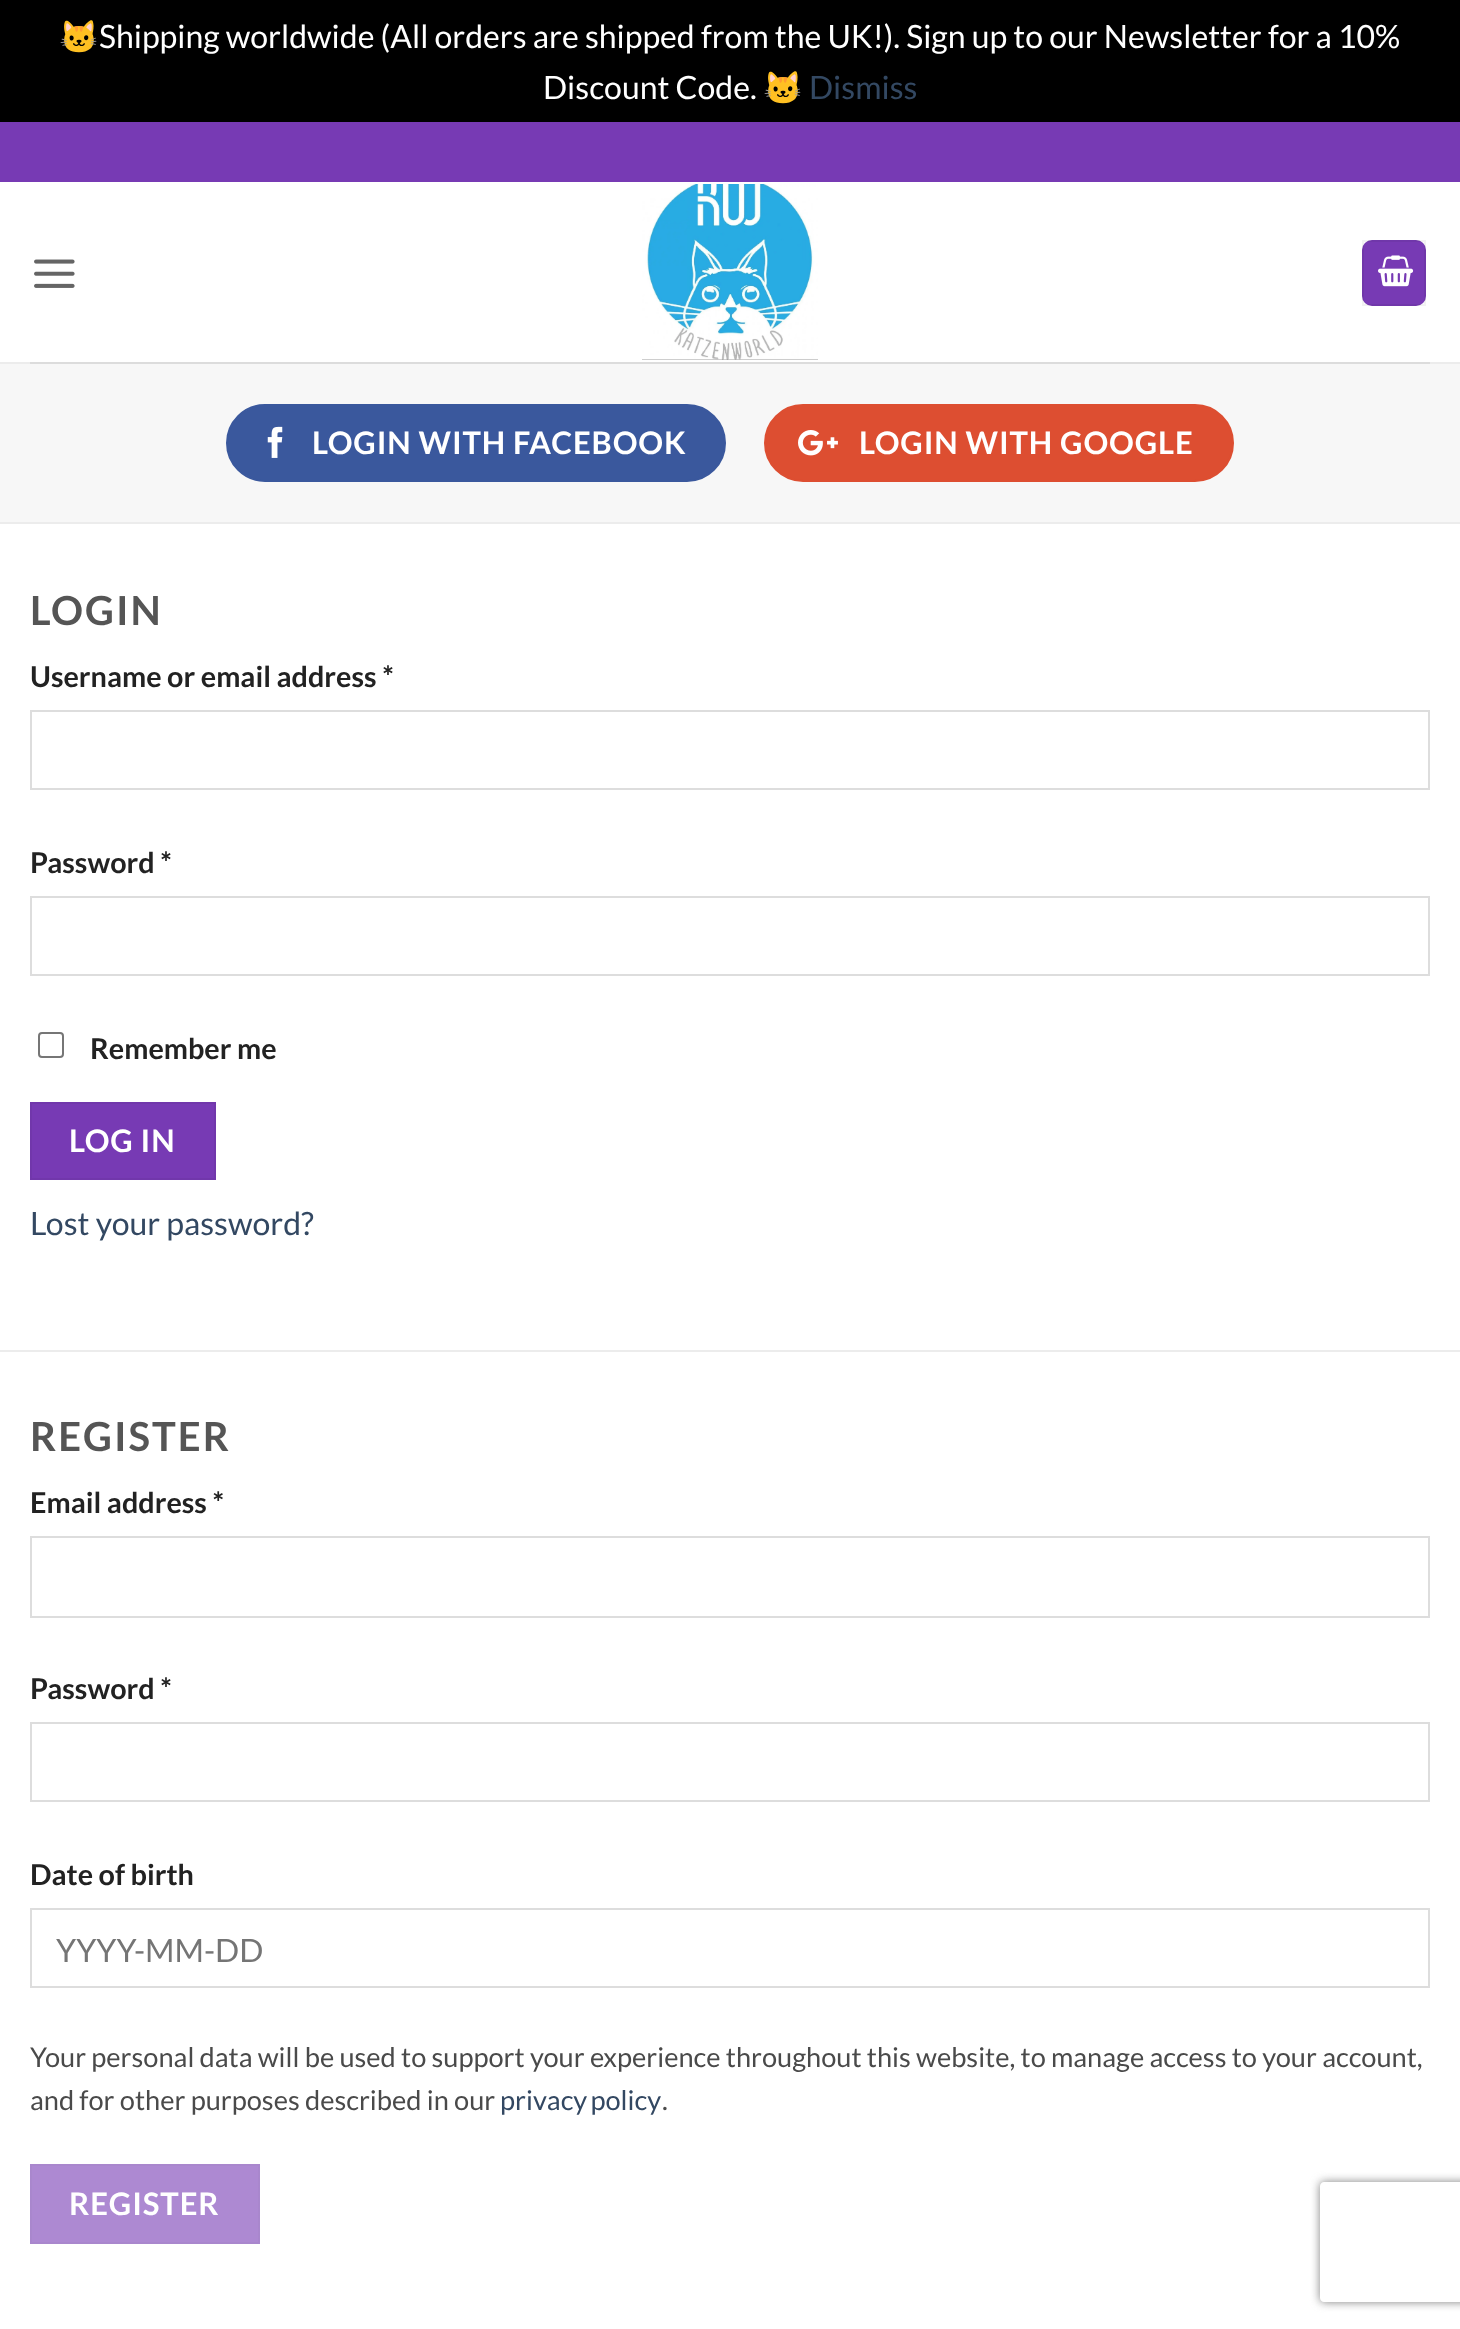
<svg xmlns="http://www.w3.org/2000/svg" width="1460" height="2329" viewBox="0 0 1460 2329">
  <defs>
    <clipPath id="clip1"><path d="M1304 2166H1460V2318H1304ZM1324 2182H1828C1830 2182 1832 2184 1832 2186V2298C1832 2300 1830 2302 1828 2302H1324C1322 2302 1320 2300 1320 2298V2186C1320 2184 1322 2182 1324 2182Z" clip-rule="evenodd"/></clipPath>
  </defs>
  <rect width="100%" height="100%" fill="#000"/>
  <path d="M0 182h1460v2147H0z" fill="#fff"/>
  <path d="M0 122h1460v60H0z" fill="#773ab4"/>
  <image x="34" y="259" width="41" height="29" href="img/1.png"/>
  <image x="642" y="184" width="176" height="176" href="img/2.png"/>
  <rect x="1362" y="240" width="64" height="66" rx="10" fill="#773ab4"/>
  <path d="M1363 241h62v64H1363z" fill="none" stroke="#0000000d" stroke-width="2"/>
  <image x="1378" y="255" width="36" height="32" href="img/3.png"/>
  <path d="M0 362h1460v2H0z" fill="#ececec"/>
  <path d="M30 362h1400v2H30z" fill="#dcdcdc"/>
  <path d="M0 364h1460v158H0z" fill="#f7f7f7"/>
  <path d="M0 522h1460v2H0z" fill="#ececec"/>
  <rect x="227" y="405" width="498" height="76" rx="38" fill="#3a589d" stroke="#3a589d" stroke-width="2"/>
  <image x="267" y="426" width="16" height="32" href="img/4.png"/>
  <rect x="765" y="405" width="468" height="76" rx="38" fill="#dd4e31" stroke="#dd4e31" stroke-width="2"/>
  <image x="798" y="430" width="40" height="26" href="img/5.png"/>
  <path d="M0 1350h1460v2H0z" fill="#ececec"/>
  <path d="M31 711h1398v78H31z" fill="none" stroke="#ddd" stroke-width="2"/>
  <path d="M31 897h1398v78H31z" fill="none" stroke="#ddd" stroke-width="2"/>
  <rect x="39" y="1033" width="24" height="24" rx="3" fill="none" stroke="#767676" stroke-width="2"/>
  <path d="M31 1103h184v76H31z" fill="#773ab4" stroke="#7137ab" stroke-width="2"/>
  <path d="M31 1537h1398v80H31z" fill="none" stroke="#ddd" stroke-width="2"/>
  <path d="M31 1723h1398v78H31z" fill="none" stroke="#ddd" stroke-width="2"/>
  <path d="M31 1909h1398v78H31z" fill="none" stroke="#ddd" stroke-width="2"/>
  <path d="M31 2165h228v78H31z" fill="#ad89d2" stroke="#a987cd" stroke-width="2"/>
  <g clip-path="url(#clip1)">
    <rect x="1320" y="2182" width="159" height="120" rx="4" fill="#808080" filter="blur(5px)"/>
  </g>
  <text x="59" y="48" font-family="Noto Color Emoji" font-size="32" fill="#fff">🐱</text>
  <g font-family="Lato" font-size="32" fill="#fff">
    <text x="99" y="48">Shipping worldwide (All orders are shipped from the UK!). Sign up to our Newsletter for a 10%</text>
    <text x="543" y="99">Discount Code.</text>
  </g>
  <text x="763" y="99" font-family="Noto Color Emoji" font-size="32" fill="#fff">🐱</text>
  <text x="809" y="99" font-family="Lato" font-size="32" fill="#334862">Dismiss</text>
  <g font-family="Lato" font-size="31" font-weight="bold" letter-spacing="0.9" fill="#fff">
    <text x="312" y="454">LOGIN WITH FACEBOOK</text>
    <text x="859" y="454">LOGIN WITH GOOGLE</text>
  </g>
  <text x="30" y="625" font-family="Lato" font-size="40" font-weight="bold" letter-spacing="2" fill="#555">LOGIN</text>
  <g font-family="Lato" font-size="28.75" font-weight="bold" fill="#222">
    <text x="30" y="687">Username or email address *</text>
    <text x="30" y="873">Password *</text>
    <text x="90" y="1059">Remember me</text>
  </g>
  <text x="69" y="1152" font-family="Lato" font-size="31" font-weight="bold" letter-spacing="0.9" fill="#fff">LOG IN</text>
  <text x="30" y="1235" font-family="Lato" font-size="32" fill="#334862">Lost your password?</text>
  <text x="30" y="1451" font-family="Lato" font-size="40" font-weight="bold" letter-spacing="2" fill="#555">REGISTER</text>
  <g font-family="Lato" font-size="28.75" font-weight="bold" fill="#222">
    <text x="30" y="1513">Email address *</text>
    <text x="30" y="1699">Password *</text>
    <text x="30" y="1885">Date of birth</text>
  </g>
  <text x="56" y="1962" font-family="Lato" font-size="32" fill="#757575">YYYY-MM-DD</text>
  <g font-family="Lato" font-size="27.2" fill="#4a4a4a">
    <text x="30" y="2067">Your personal data will be used to support your experience throughout this website, to manage access to your account,</text>
    <text x="30" y="2110">and for other purposes described in our</text>
  </g>
  <text x="500" y="2110" word-spacing="-2" font-family="Lato" font-size="27.2" fill="#334862">privacy policy</text>
  <text x="662" y="2110" font-family="Lato" font-size="27.2" fill="#4a4a4a">.</text>
  <text x="69" y="2215" font-family="Lato" font-size="31" font-weight="bold" letter-spacing="0.9" fill="#fff">REGISTER</text>
</svg>
